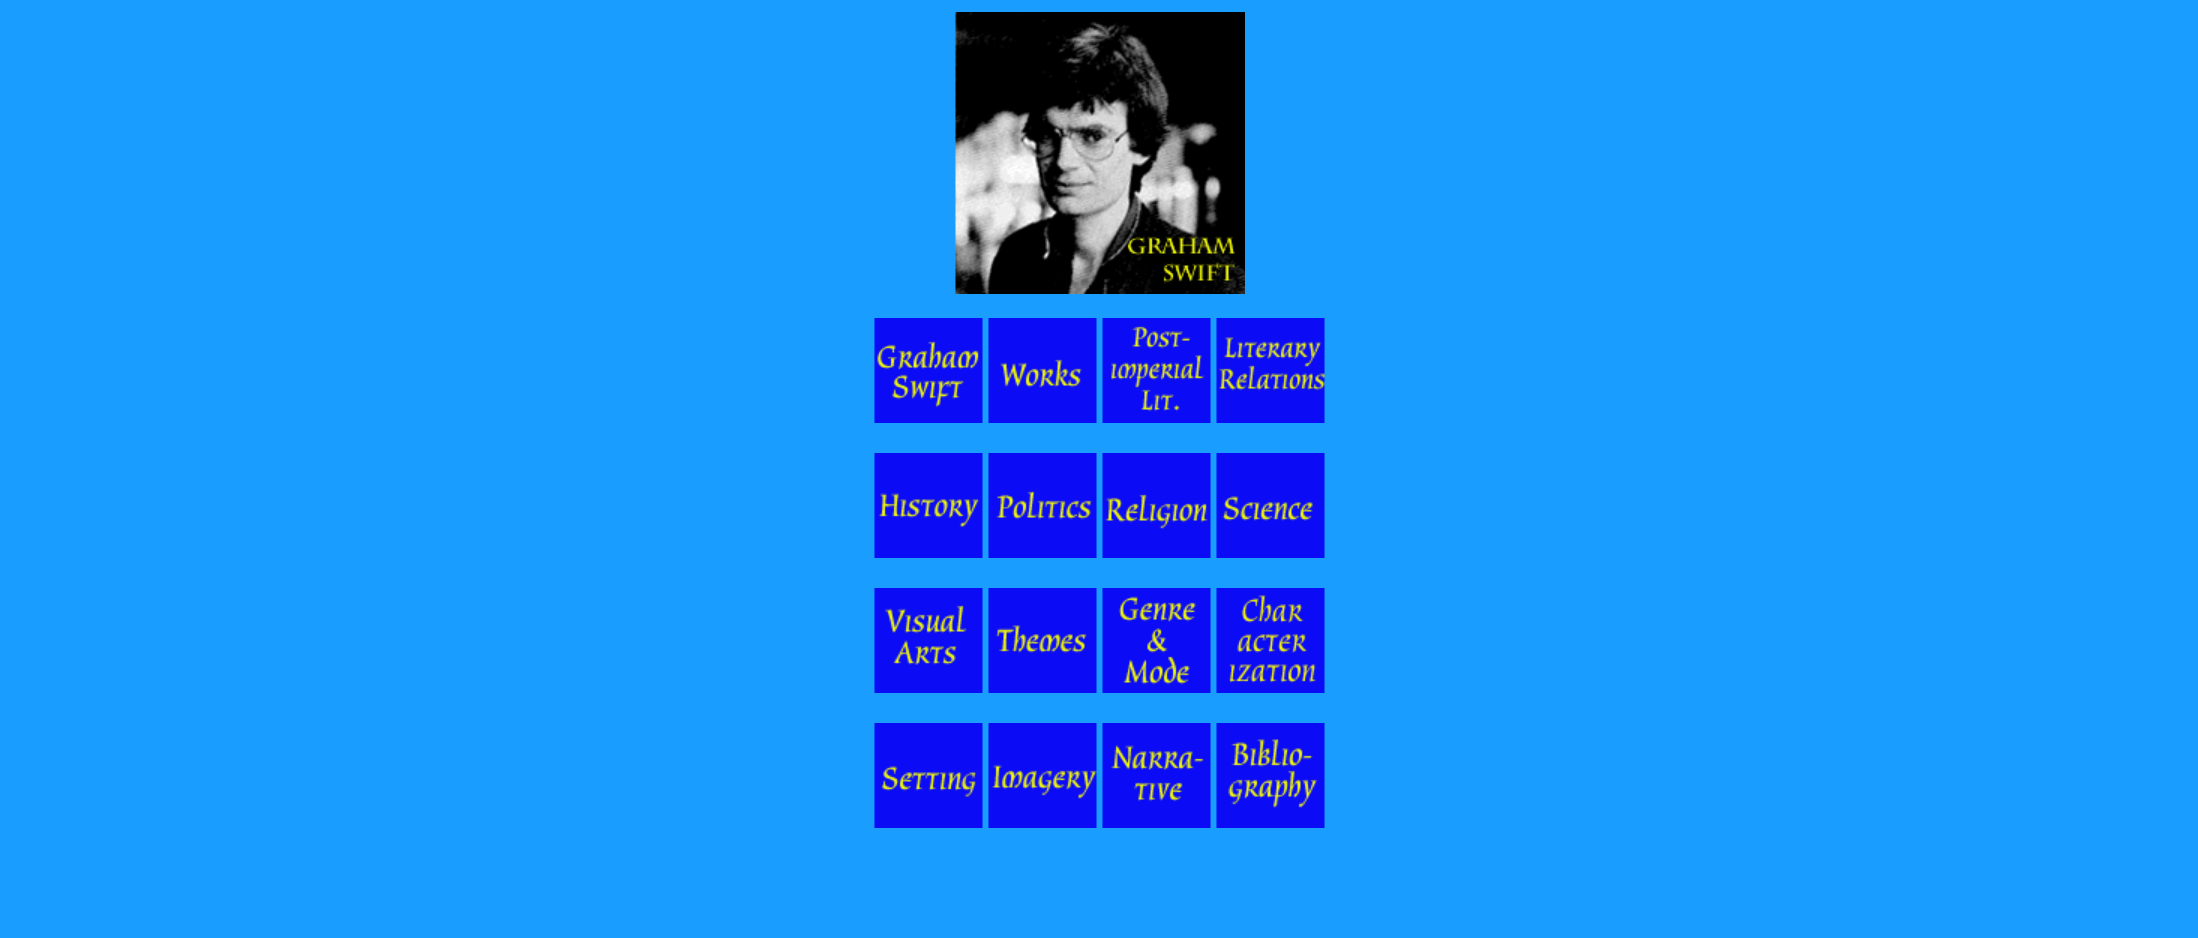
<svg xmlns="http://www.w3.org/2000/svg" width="2198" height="938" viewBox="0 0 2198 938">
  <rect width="100%" height="100%" fill="#199dff"/>
  <image x="955" y="12" width="290" height="282" href="img/1.png"/>
  <image x="874" y="318" width="109" height="105" href="img/2.png"/>
  <image x="988" y="318" width="109" height="105" href="img/3.png"/>
  <image x="1102" y="318" width="109" height="105" href="img/4.png"/>
  <image x="1216" y="318" width="109" height="105" href="img/5.png"/>
  <image x="874" y="453" width="109" height="105" href="img/6.png"/>
  <image x="988" y="453" width="109" height="105" href="img/7.png"/>
  <image x="1102" y="453" width="109" height="105" href="img/8.png"/>
  <image x="1216" y="453" width="109" height="105" href="img/9.png"/>
  <image x="874" y="588" width="109" height="105" href="img/10.png"/>
  <image x="988" y="588" width="109" height="105" href="img/11.png"/>
  <image x="1102" y="588" width="109" height="105" href="img/12.png"/>
  <image x="1216" y="588" width="109" height="105" href="img/13.png"/>
  <image x="874" y="723" width="109" height="105" href="img/14.png"/>
  <image x="988" y="723" width="109" height="105" href="img/15.png"/>
  <image x="1102" y="723" width="109" height="105" href="img/16.png"/>
  <image x="1216" y="723" width="109" height="105" href="img/17.png"/>
</svg>
